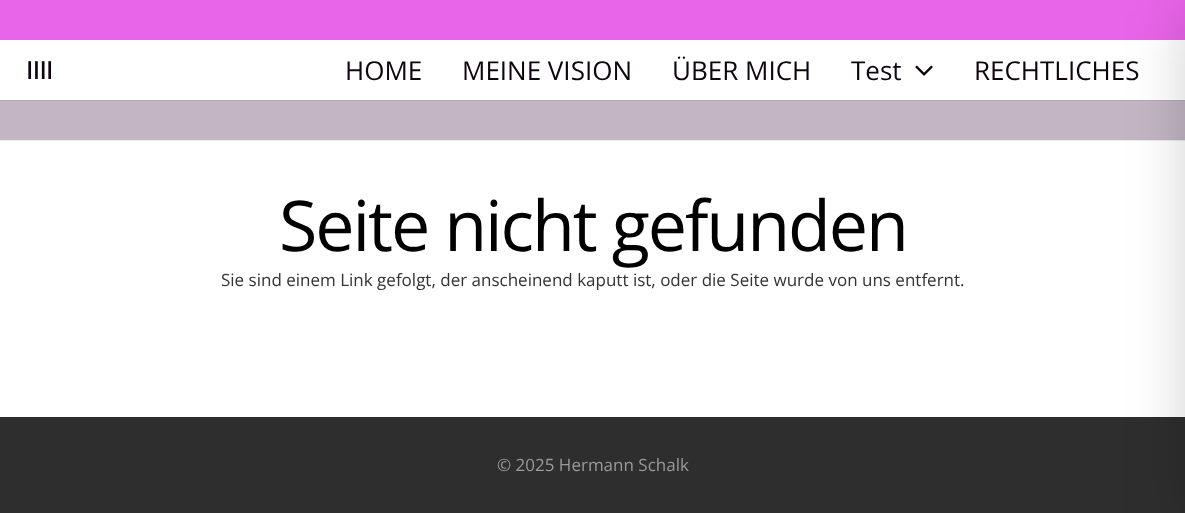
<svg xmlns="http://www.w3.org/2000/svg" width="1185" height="513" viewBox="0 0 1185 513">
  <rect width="100%" height="100%" fill="#fff"/>
  <path d="M0 101h1185v39H0z" fill="#c3b5c3"/>
  <path d="M0 0h1185v40H0z" fill="#e864e8"/>
  <path d="M0 100h1185v1H0z" fill="#b5a7b5"/>
  <image x="915" y="65" width="18" height="11" href="img/1.png"/>
  <path d="M0 140h1185v1H0z" fill="#ebebeb"/>
  <path d="M0 417h1185v96H0z" fill="#2e2e2e"/>
  <path d="M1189 10h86v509H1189z" fill="#00000033" filter="blur(30px)"/>
  <text x="26" y="79" font-family="Open Sans" font-size="24" font-weight="bold" fill="#0d040d">IIII</text>
  <g font-family="Open Sans" font-size="26" fill="#0d040d">
    <text x="345" y="80">HOME</text>
    <text x="462" y="80">MEINE VISION</text>
    <text x="672" y="80">ÜBER MICH</text>
    <text x="851" y="80">Test</text>
    <text x="974" y="80">RECHTLICHES</text>
  </g>
  <text x="279" y="251" font-family="Open Sans" font-size="70" letter-spacing="-2.1" fill="#000">Seite nicht gefunden</text>
  <text x="221" y="286" font-family="Open Sans" font-size="17" fill="#333">Sie sind einem Link gefolgt, der anscheinend kaputt ist, oder die Seite wurde von uns entfernt.</text>
  <text x="497" y="471" font-family="Open Sans" font-size="17" fill="#999">© 2025 Hermann Schalk</text>
</svg>
